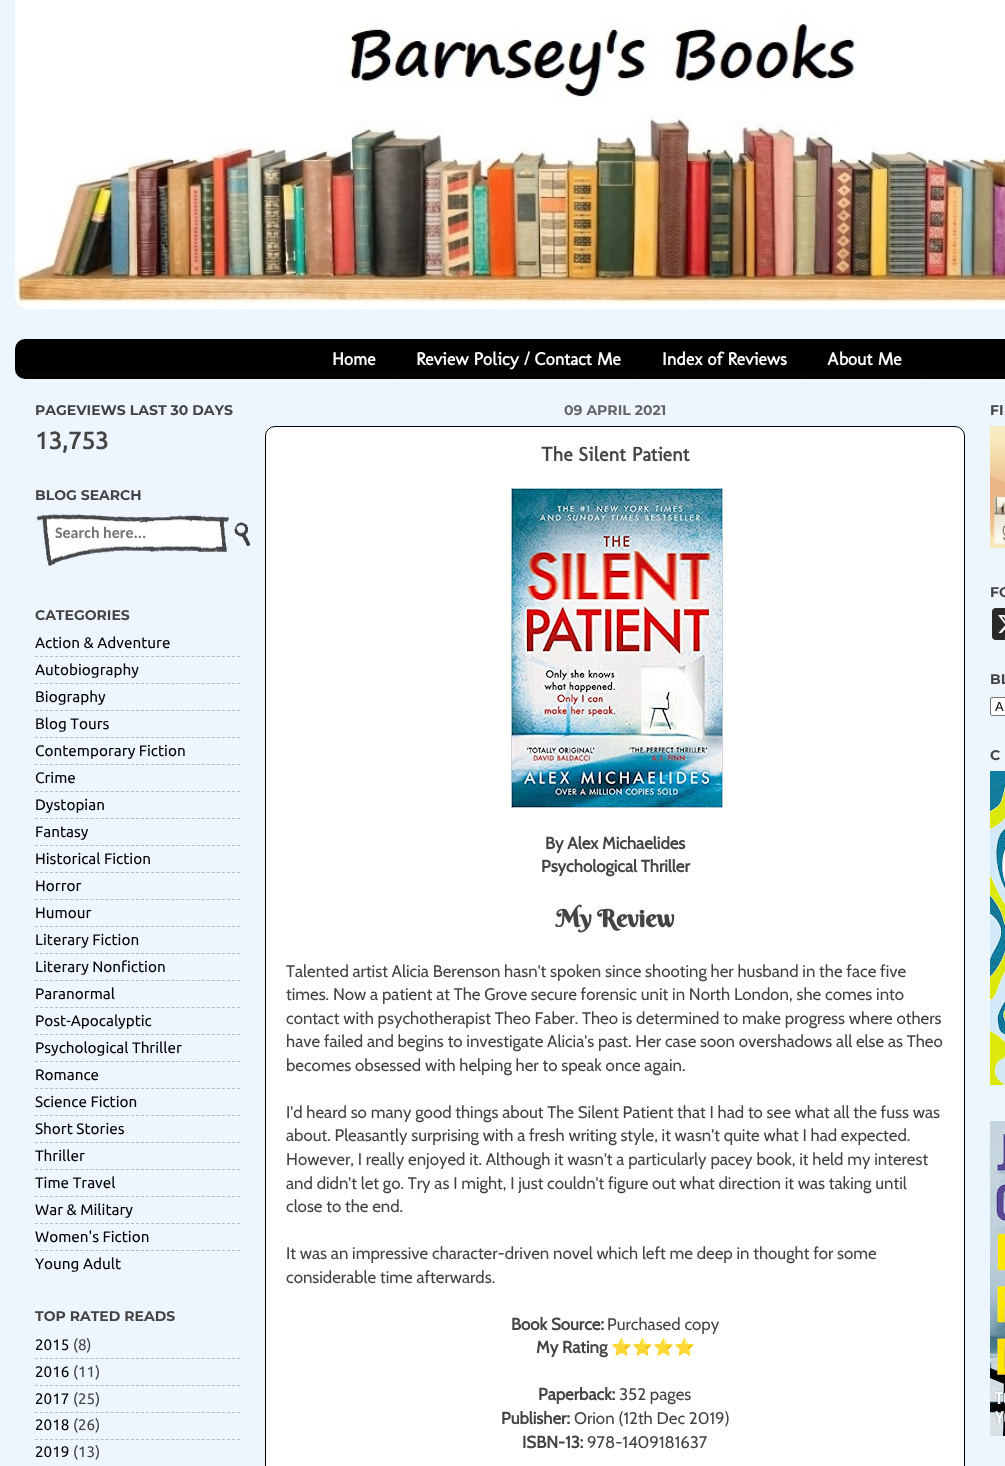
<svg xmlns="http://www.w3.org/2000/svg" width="1005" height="1466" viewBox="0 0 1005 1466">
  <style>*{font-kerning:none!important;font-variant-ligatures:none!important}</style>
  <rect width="100%" height="100%" fill="#edf5ff"/>
  <rect x="15" y="-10" width="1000" height="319" rx="10" fill="#c6dafc"/>
  <image x="15" y="0" width="990" height="309" href="img/1.png"/>
  <rect x="15" y="339" width="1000" height="40" rx="10" fill="#000"/>
  <image x="17" y="373" width="988" height="5" href="img/2.png"/>
  <path d="M394 373h1v6H394z" fill="#000"/>
  <path d="M639 373h1v6H639z" fill="#000"/>
  <path d="M804 373h1v6H804z" fill="#000"/>
  <path d="M920 373h1v6H920z" fill="#000"/>
  <image x="36" y="511" width="193" height="55" href="img/3.png"/>
  <image x="234" y="522" width="16" height="24" href="img/4.png"/>
  <path d="M35 656.5H240" fill="none" stroke="#b7bbc0" stroke-dasharray="3 2.05"/>
  <path d="M35 683.5H240" fill="none" stroke="#b7bbc0" stroke-dasharray="3 2.05"/>
  <path d="M35 710.5H240" fill="none" stroke="#b7bbc0" stroke-dasharray="3 2.05"/>
  <path d="M35 737.5H240" fill="none" stroke="#b7bbc0" stroke-dasharray="3 2.05"/>
  <path d="M35 764.5H240" fill="none" stroke="#b7bbc0" stroke-dasharray="3 2.05"/>
  <path d="M35 791.5H240" fill="none" stroke="#b7bbc0" stroke-dasharray="3 2.05"/>
  <path d="M35 818.5H240" fill="none" stroke="#b7bbc0" stroke-dasharray="3 2.05"/>
  <path d="M35 845.5H240" fill="none" stroke="#b7bbc0" stroke-dasharray="3 2.05"/>
  <path d="M35 872.5H240" fill="none" stroke="#b7bbc0" stroke-dasharray="3 2.05"/>
  <path d="M35 899.5H240" fill="none" stroke="#b7bbc0" stroke-dasharray="3 2.05"/>
  <path d="M35 926.5H240" fill="none" stroke="#b7bbc0" stroke-dasharray="3 2.05"/>
  <path d="M35 953.5H240" fill="none" stroke="#b7bbc0" stroke-dasharray="3 2.05"/>
  <path d="M35 980.5H240" fill="none" stroke="#b7bbc0" stroke-dasharray="3 2.05"/>
  <path d="M35 1007.5H240" fill="none" stroke="#b7bbc0" stroke-dasharray="3 2.05"/>
  <path d="M35 1034.5H240" fill="none" stroke="#b7bbc0" stroke-dasharray="3 2.05"/>
  <path d="M35 1061.5H240" fill="none" stroke="#b7bbc0" stroke-dasharray="3 2.05"/>
  <path d="M35 1088.5H240" fill="none" stroke="#b7bbc0" stroke-dasharray="3 2.05"/>
  <path d="M35 1115.5H240" fill="none" stroke="#b7bbc0" stroke-dasharray="3 2.05"/>
  <path d="M35 1142.5H240" fill="none" stroke="#b7bbc0" stroke-dasharray="3 2.05"/>
  <path d="M35 1169.5H240" fill="none" stroke="#b7bbc0" stroke-dasharray="3 2.05"/>
  <path d="M35 1196.5H240" fill="none" stroke="#b7bbc0" stroke-dasharray="3 2.05"/>
  <path d="M35 1223.5H240" fill="none" stroke="#b7bbc0" stroke-dasharray="3 2.05"/>
  <path d="M35 1250.5H240" fill="none" stroke="#b7bbc0" stroke-dasharray="3 2.05"/>
  <path d="M35 1358.5H240" fill="none" stroke="#b7bbc0" stroke-dasharray="3 2.05"/>
  <path d="M35 1385.5H240" fill="none" stroke="#b7bbc0" stroke-dasharray="3 2.05"/>
  <path d="M35 1412.5H240" fill="none" stroke="#b7bbc0" stroke-dasharray="3 2.05"/>
  <path d="M35 1439.5H240" fill="none" stroke="#b7bbc0" stroke-dasharray="3 2.05"/>
  <rect x="265.5" y="426.5" width="699" height="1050" rx="9.5" fill="#fff" stroke="#000"/>
  <image x="511" y="488" width="212" height="320" href="img/5.png"/>
  <image x="990" y="426" width="15" height="122" href="img/6.png"/>
  <rect x="992" y="608" width="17" height="32" rx="4" fill="#2a2a2a"/>
  <image x="998" y="615" width="7" height="19" href="img/7.png"/>
  <rect x="990.5" y="697.5" width="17" height="18" rx="1.5" fill="#fff" stroke="#767676"/>
  <image x="990" y="771" width="15" height="314" href="img/8.png"/>
  <image x="990" y="1121" width="15" height="315" href="img/9.png"/>
  <g font-family="Molengo" font-size="18" font-weight="bold" fill="#fcfcfc">
    <text x="332" y="365">Home</text>
    <text x="416" y="365">Review Policy / Contact Me</text>
    <text x="662" y="365">Index of Reviews</text>
    <text x="827" y="365">About Me</text>
  </g>
  <text x="35" y="415" font-family="Montserrat" font-size="14" font-weight="100" fill="#444">PAGEVIEWS LAST 30 DAYS</text>
  <text x="35" y="449" font-family="Ubuntu" font-size="24" font-weight="bold" fill="#444">13,753</text>
  <text x="35" y="500" font-family="Montserrat" font-size="14" font-weight="100" fill="#444">BLOG SEARCH</text>
  <text x="55" y="538" font-family="Carlito" font-size="16" font-weight="bold" fill="#757575">Search here...</text>
  <text x="35" y="620" font-family="Montserrat" font-size="14" font-weight="100" fill="#444">CATEGORIES</text>
  <g font-family="Ubuntu" font-size="15.25" fill="#000">
    <text x="35" y="648">Action &amp; Adventure</text>
    <text x="35" y="675">Autobiography</text>
    <text x="35" y="702">Biography</text>
    <text x="35" y="729">Blog Tours</text>
    <text x="35" y="756">Contemporary Fiction</text>
    <text x="35" y="783">Crime</text>
    <text x="35" y="810">Dystopian</text>
    <text x="35" y="837">Fantasy</text>
    <text x="35" y="864">Historical Fiction</text>
    <text x="35" y="891">Horror</text>
    <text x="35" y="918">Humour</text>
    <text x="35" y="945">Literary Fiction</text>
    <text x="35" y="972">Literary Nonfiction</text>
    <text x="35" y="999">Paranormal</text>
    <text x="35" y="1026">Post-Apocalyptic</text>
    <text x="35" y="1053">Psychological Thriller</text>
    <text x="35" y="1080">Romance</text>
    <text x="35" y="1107">Science Fiction</text>
    <text x="35" y="1134">Short Stories</text>
    <text x="35" y="1161">Thriller</text>
    <text x="35" y="1188">Time Travel</text>
    <text x="35" y="1215">War &amp; Military</text>
    <text x="35" y="1242">Women's Fiction</text>
    <text x="35" y="1269">Young Adult</text>
  </g>
  <text x="35" y="1321" font-family="Montserrat" font-size="14" font-weight="100" fill="#444">TOP RATED READS</text>
  <text x="35" y="1350" font-family="Ubuntu" font-size="15.25" fill="#000">2015</text>
  <text x="73" y="1350" font-family="Ubuntu" font-size="15.25" fill="#444">(8)</text>
  <text x="35" y="1377" font-family="Ubuntu" font-size="15.25" fill="#000">2016</text>
  <text x="73" y="1377" font-family="Ubuntu" font-size="15.25" fill="#444">(11)</text>
  <text x="35" y="1404" font-family="Ubuntu" font-size="15.25" fill="#000">2017</text>
  <text x="73" y="1404" font-family="Ubuntu" font-size="15.25" fill="#444">(25)</text>
  <text x="35" y="1430" font-family="Ubuntu" font-size="15.25" fill="#000">2018</text>
  <text x="73" y="1430" font-family="Ubuntu" font-size="15.25" fill="#444">(26)</text>
  <text x="35" y="1457" font-family="Ubuntu" font-size="15.25" fill="#000">2019</text>
  <text x="73" y="1457" font-family="Ubuntu" font-size="15.25" fill="#444">(13)</text>
  <text x="564" y="415" font-family="Montserrat" font-size="14" font-weight="100" fill="#666">09 APRIL 2021</text>
  <text x="541" y="461" font-family="Molengo" font-size="20" font-weight="bold" fill="#444">The Silent Patient</text>
  <g font-family="Cabin" font-size="16.85" font-weight="bold" fill="#444">
    <text x="545" y="849">By Alex Michaelides</text>
    <text x="541" y="872">Psychological Thriller</text>
  </g>
  <text x="556" y="927" font-family="Berkshire Swash" font-size="24" font-weight="bold" fill="#444">My Review</text>
  <g font-family="Cabin" font-size="16.85" fill="#444">
    <text x="286" y="977">Talented artist Alicia Berenson hasn't spoken since shooting her husband in the face five</text>
    <text x="286" y="1000">times. Now a patient at The Grove secure forensic unit in North London, she comes into</text>
    <text x="286" y="1024">contact with psychotherapist Theo Faber. Theo is determined to make progress where others</text>
    <text x="286" y="1047">have failed and begins to investigate Alicia's past. Her case soon overshadows all else as Theo</text>
    <text x="286" y="1071">becomes obsessed with helping her to speak once again.</text>
    <text x="286" y="1118">I'd heard so many good things about The Silent Patient that I had to see what all the fuss was</text>
    <text x="286" y="1141">about. Pleasantly surprising with a fresh writing style, it wasn't quite what I had expected.</text>
    <text x="286" y="1165">However, I really enjoyed it. Although it wasn't a particularly pacey book, it held my interest</text>
    <text x="286" y="1189">and didn't let go. Try as I might, I just couldn't figure out what direction it was taking until</text>
    <text x="286" y="1212">close to the end.</text>
    <text x="286" y="1259">It was an impressive character-driven novel which left me deep in thought for some</text>
    <text x="286" y="1283">considerable time afterwards.</text>
  </g>
  <text x="511" y="1330" font-family="Cabin" font-size="16.85" font-weight="bold" fill="#444">Book Source:</text>
  <text x="607" y="1330" font-family="Cabin" font-size="16.85" fill="#444">Purchased copy</text>
  <text x="536" y="1353" font-family="Cabin" font-size="16.85" font-weight="bold" fill="#444">My Rating</text>
  <text x="611" y="1353" font-family="Noto Color Emoji" font-size="16.85" fill="#444">⭐⭐⭐⭐</text>
  <text x="538" y="1400" font-family="Cabin" font-size="16.85" font-weight="bold" fill="#444">Paperback:</text>
  <text x="619" y="1400" font-family="Cabin" font-size="16.85" fill="#444">352 pages</text>
  <text x="501" y="1424" font-family="Cabin" font-size="16.85" font-weight="bold" fill="#444">Publisher:</text>
  <text x="574" y="1424" font-family="Cabin" font-size="16.85" fill="#444">Orion (12th Dec 2019)</text>
  <text x="522" y="1448" font-family="Cabin" font-size="16.85" font-weight="bold" fill="#444">ISBN-13:</text>
  <text x="587" y="1448" font-family="Cabin" font-size="16.85" fill="#444">978-1409181637</text>
  <g font-family="Montserrat" font-size="14" font-weight="100" fill="#444">
    <text x="990" y="415">FI</text>
    <text x="990" y="597">FO</text>
    <text x="990" y="684">BL</text>
  </g>
  <text x="995" y="711" font-family="Liberation Sans" font-size="13" fill="#000">A</text>
  <text x="990" y="760" font-family="Montserrat" font-size="14" font-weight="100" fill="#444">C</text>
</svg>
